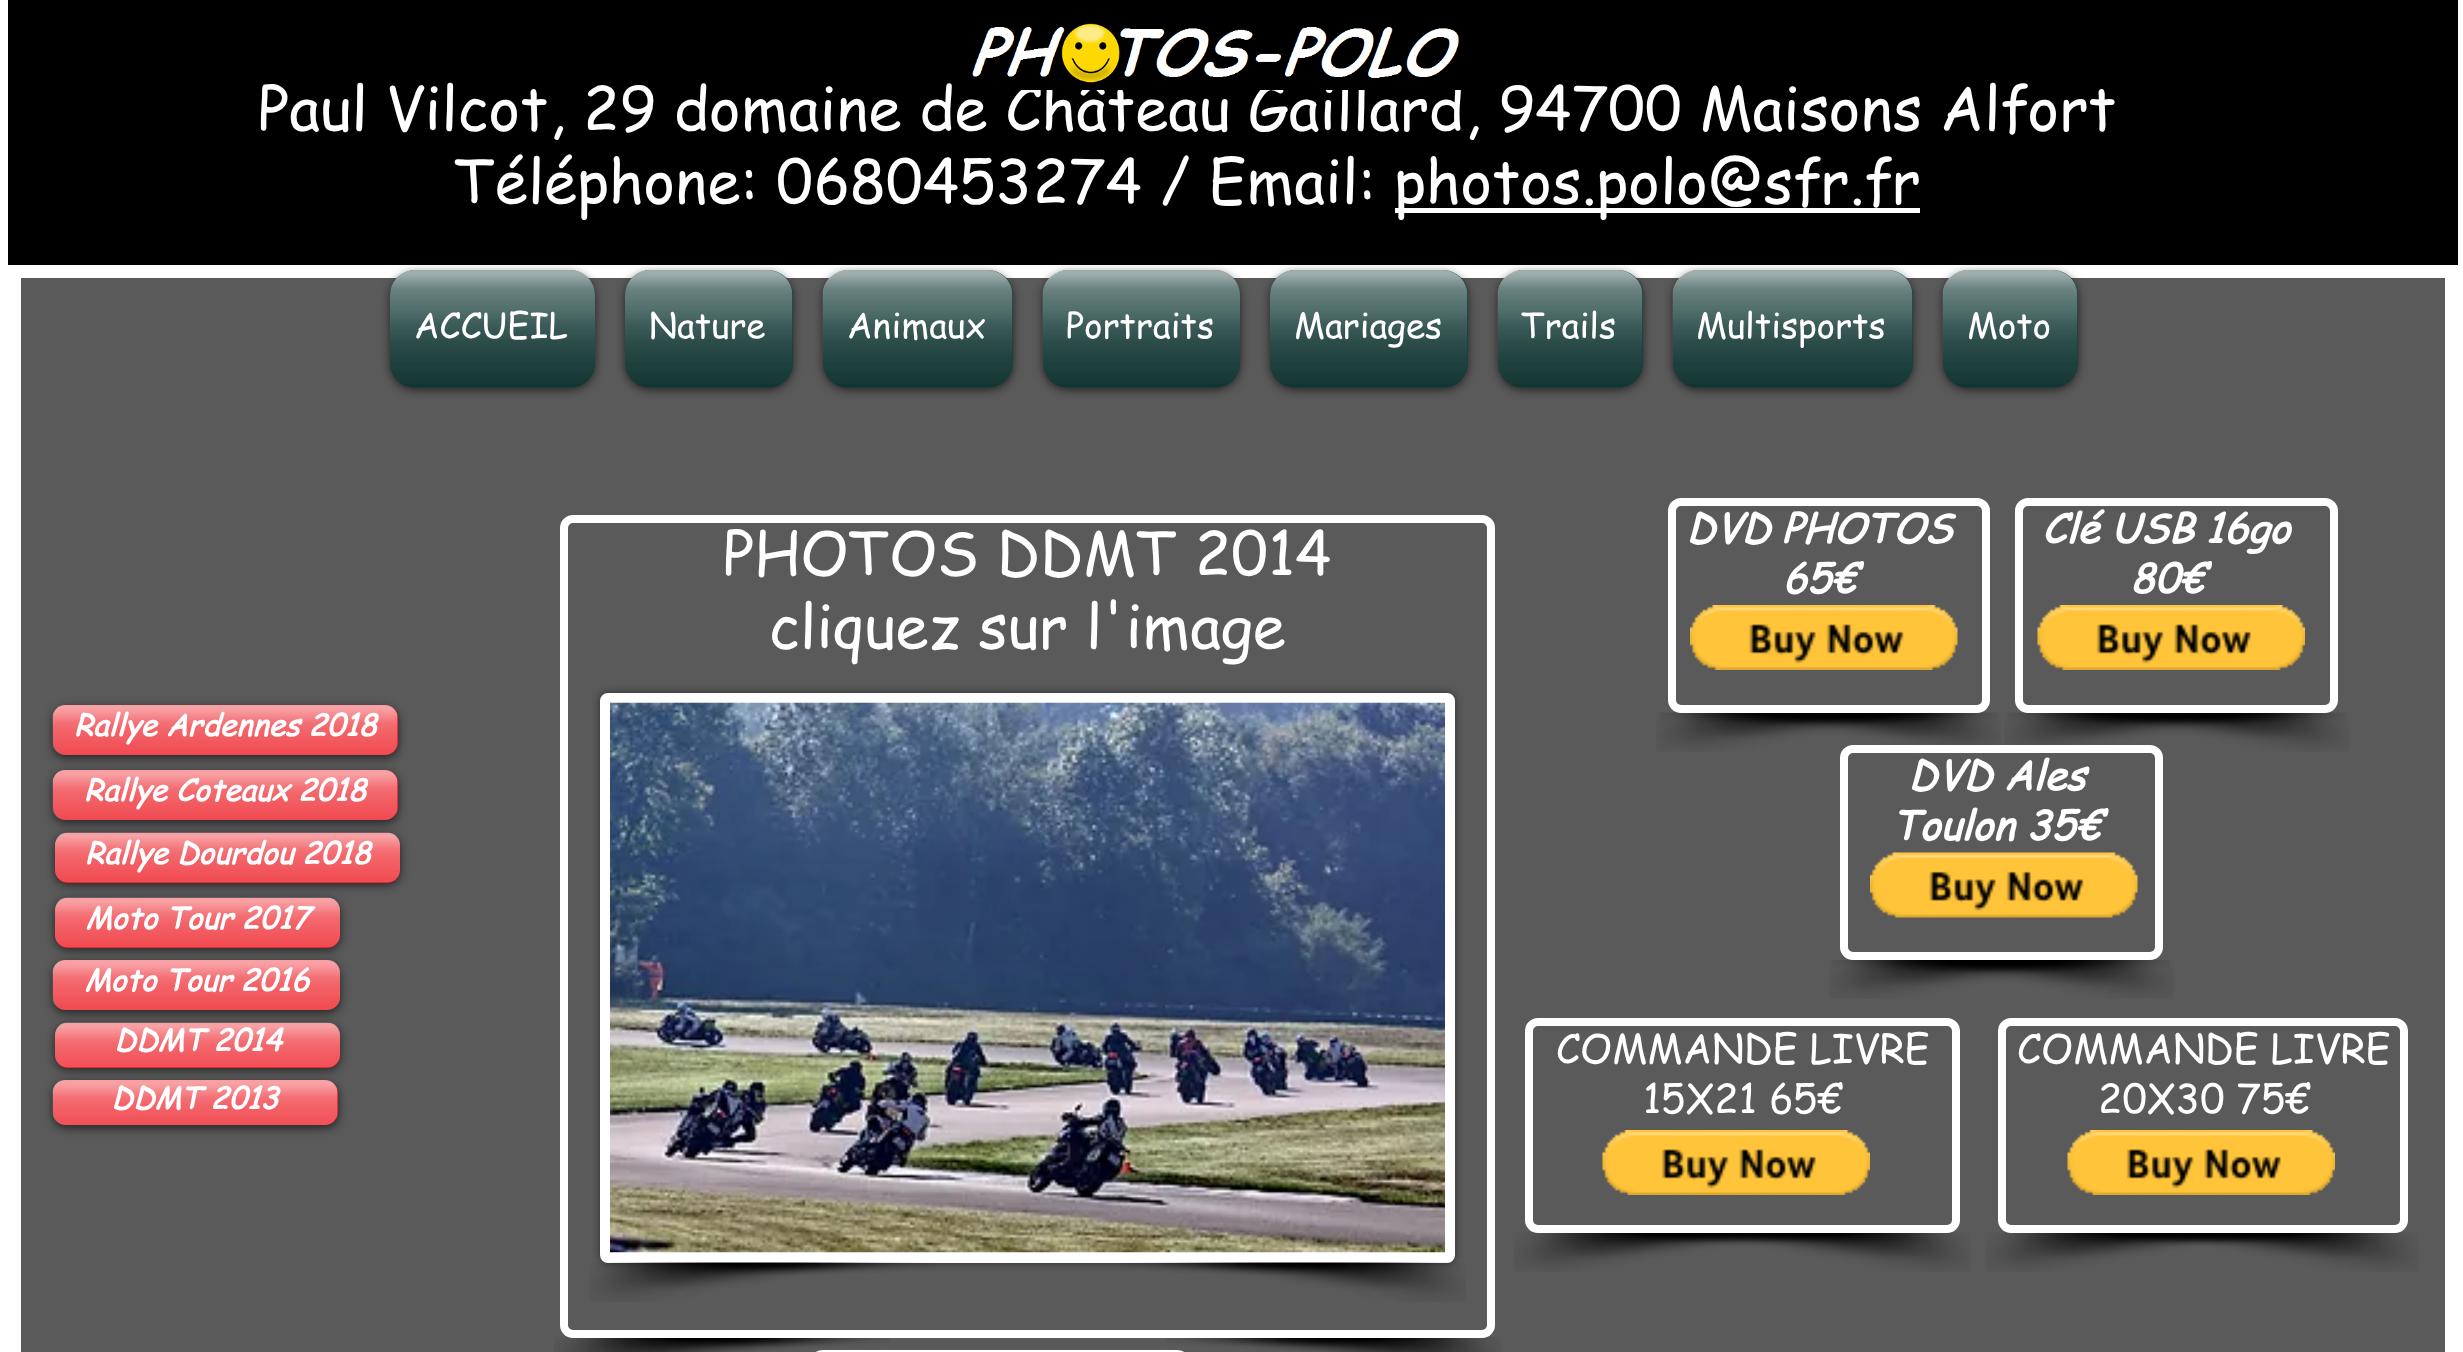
<svg xmlns="http://www.w3.org/2000/svg" width="2463" height="1352" viewBox="0 0 2463 1352">
  <rect width="100%" height="100%" fill="#fff"/>
  <path d="M8 0h2450v265H8z" fill="#000"/>
  <path d="M1395 208h525v5H1395z" fill="#fff"/>
  <path d="M21 278h2424v1074H21z" fill="#5a5a5a"/>
  <rect x="390" y="273" width="205" height="117" rx="25" fill="#00000099" filter="blur(5px)"/>
  <rect x="390" y="270" width="205" height="118" rx="25" fill="#163e3a"/>
  <image x="390" y="270" width="205" height="114" href="img/2.png"/>
  <image x="390" y="319" width="205" height="68" href="img/3.png"/>
  <rect x="625" y="273" width="168" height="117" rx="25" fill="#00000099" filter="blur(5px)"/>
  <rect x="625" y="270" width="168" height="118" rx="25" fill="#163e3a"/>
  <image x="625" y="270" width="168" height="114" href="img/4.png"/>
  <image x="625" y="319" width="167" height="68" href="img/5.png"/>
  <rect x="823" y="273" width="190" height="117" rx="25" fill="#00000099" filter="blur(5px)"/>
  <rect x="823" y="270" width="190" height="118" rx="25" fill="#163e3a"/>
  <image x="822" y="270" width="191" height="114" href="img/6.png"/>
  <image x="823" y="319" width="189" height="68" href="img/7.png"/>
  <rect x="1043" y="273" width="197" height="117" rx="25" fill="#00000099" filter="blur(5px)"/>
  <rect x="1043" y="270" width="197" height="118" rx="25" fill="#163e3a"/>
  <image x="1042" y="270" width="198" height="114" href="img/8.png"/>
  <image x="1043" y="319" width="197" height="68" href="img/9.png"/>
  <rect x="1270" y="273" width="198" height="117" rx="25" fill="#00000099" filter="blur(5px)"/>
  <rect x="1270" y="270" width="198" height="118" rx="25" fill="#163e3a"/>
  <image x="1270" y="270" width="198" height="114" href="img/10.png"/>
  <image x="1270" y="319" width="197" height="68" href="img/11.png"/>
  <rect x="1498" y="273" width="145" height="117" rx="25" fill="#00000099" filter="blur(5px)"/>
  <rect x="1498" y="270" width="145" height="118" rx="25" fill="#163e3a"/>
  <image x="1497" y="270" width="146" height="114" href="img/12.png"/>
  <image x="1498" y="319" width="144" height="68" href="img/13.png"/>
  <rect x="1673" y="273" width="240" height="117" rx="25" fill="#00000099" filter="blur(5px)"/>
  <rect x="1673" y="270" width="240" height="118" rx="25" fill="#163e3a"/>
  <image x="1672" y="270" width="241" height="114" href="img/14.png"/>
  <image x="1673" y="319" width="239" height="68" href="img/15.png"/>
  <rect x="1943" y="273" width="135" height="117" rx="25" fill="#00000099" filter="blur(5px)"/>
  <rect x="1943" y="270" width="135" height="118" rx="25" fill="#163e3a"/>
  <image x="1942" y="270" width="136" height="114" href="img/16.png"/>
  <image x="1943" y="319" width="134" height="68" href="img/17.png"/>
  <image x="554" y="1337" width="336" height="15" href="img/18.png"/>
  <image x="1165" y="1337" width="336" height="15" href="img/19.png"/>
  <rect x="564" y="519" width="927" height="815" rx="9" fill="none" stroke="#fff" stroke-width="8"/>
  <image x="1656" y="712" width="342" height="40" href="img/21.png"/>
  <image x="1660" y="712" width="341" height="33" href="img/22.png"/>
  <rect x="1672" y="502" width="314" height="207" rx="9" fill="none" stroke="#fff" stroke-width="8"/>
  <image x="1690" y="605" width="268" height="65" href="img/20.png"/>
  <image x="2004" y="712" width="341" height="33" href="img/24.png"/>
  <image x="2008" y="712" width="341" height="40" href="img/25.png"/>
  <rect x="2019" y="502" width="315" height="207" rx="9" fill="none" stroke="#fff" stroke-width="8"/>
  <image x="2037" y="605" width="268" height="65" href="img/23.png"/>
  <rect x="53" y="708" width="345" height="50" rx="13" fill="#00000099" filter="blur(5px)"/>
  <rect x="53" y="705" width="345" height="50" rx="13" fill="#ed1c24"/>
  <image x="52" y="705" width="346" height="50" href="img/26.png"/>
  <rect x="600" y="693" width="855" height="570" rx="8" fill="#00000080" filter="blur(4px)"/>
  <rect x="605" y="698" width="845" height="560" rx="3" fill="#fff" stroke="#fff" stroke-width="10"/>
  <image x="610" y="702" width="835" height="551" href="img/27.png"/>
  <image x="589" y="1262" width="347" height="40" href="img/28.png"/>
  <image x="1119" y="1262" width="347" height="40" href="img/29.png"/>
  <rect x="53" y="773" width="345" height="50" rx="13" fill="#00000099" filter="blur(5px)"/>
  <rect x="53" y="770" width="345" height="50" rx="13" fill="#ed1c24"/>
  <image x="52" y="770" width="346" height="50" href="img/30.png"/>
  <rect x="1844" y="749" width="315" height="207" rx="9" fill="none" stroke="#fff" stroke-width="8"/>
  <image x="1870" y="852" width="268" height="66" href="img/31.png"/>
  <image x="1829" y="960" width="341" height="39" href="img/32.png"/>
  <image x="1832" y="960" width="342" height="39" href="img/33.png"/>
  <rect x="55" y="835" width="345" height="50" rx="13" fill="#00000099" filter="blur(5px)"/>
  <rect x="55" y="833" width="345" height="50" rx="13" fill="#ed1c24"/>
  <image x="55" y="832" width="345" height="51" href="img/34.png"/>
  <rect x="55" y="900" width="285" height="50" rx="13" fill="#00000099" filter="blur(5px)"/>
  <rect x="55" y="898" width="285" height="50" rx="13" fill="#ed1c24"/>
  <image x="55" y="897" width="285" height="51" href="img/35.png"/>
  <rect x="53" y="963" width="287" height="50" rx="13" fill="#00000099" filter="blur(5px)"/>
  <rect x="53" y="960" width="287" height="50" rx="13" fill="#ed1c24"/>
  <image x="52" y="960" width="288" height="50" href="img/36.png"/>
  <rect x="55" y="1025" width="285" height="45" rx="13" fill="#00000099" filter="blur(5px)"/>
  <rect x="55" y="1023" width="285" height="45" rx="13" fill="#ed1c24"/>
  <image x="55" y="1022" width="285" height="46" href="img/37.png"/>
  <image x="1514" y="1232" width="341" height="40" href="img/39.png"/>
  <image x="1666" y="1232" width="305" height="40" href="img/40.png"/>
  <rect x="1529" y="1022" width="427" height="207" rx="9" fill="none" stroke="#fff" stroke-width="8"/>
  <image x="1602" y="1130" width="268" height="65" href="img/38.png"/>
  <image x="1986" y="1232" width="342" height="40" href="img/42.png"/>
  <image x="2113" y="1232" width="306" height="40" href="img/43.png"/>
  <rect x="2002" y="1022" width="402" height="207" rx="9" fill="none" stroke="#fff" stroke-width="8"/>
  <image x="2067" y="1130" width="268" height="65" href="img/41.png"/>
  <rect x="53" y="1083" width="285" height="45" rx="13" fill="#00000099" filter="blur(5px)"/>
  <rect x="53" y="1080" width="285" height="45" rx="13" fill="#ed1c24"/>
  <image x="52" y="1080" width="286" height="45" href="img/44.png"/>
  <rect x="814" y="1354" width="372" height="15" rx="9" fill="none" stroke="#fff" stroke-width="8"/>
  <text x="258" y="130" font-family="'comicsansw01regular'" font-size="60" fill="#fff">Paul Vilcot, 29 domaine de Château Gaillard, 94700 Maisons Alfort</text>
  <image x="972" y="23" width="490" height="67" href="img/1.png"/>
  <g font-family="'comicsansw01regular'" font-size="60" fill="#fff">
    <text x="454" y="203">Téléphone: 0680453274 / Email:</text>
    <text x="1394" y="203">photos.polo@sfr.fr</text>
  </g>
  <g font-family="'comicsansw01regular'" font-size="35" fill="#fff">
    <text x="414" y="338">ACCUEIL</text>
    <text x="649" y="338">Nature</text>
    <text x="847" y="338">Animaux</text>
    <text x="1066" y="338">Portraits</text>
    <text x="1294" y="338">Mariages</text>
    <text x="1521" y="338">Trails</text>
    <text x="1696" y="338">Multisports</text>
    <text x="1967" y="338">Moto</text>
  </g>
  <g font-family="'comicsansw01regular'" font-size="60" fill="#fff">
    <text x="723" y="575">PHOTOS DDMT 2014</text>
    <text x="769" y="648">cliquez sur l'image</text>
  </g>
  <g font-family="'comicsansw01regular'" font-size="40" font-weight="bold" font-style="italic" fill="#fff">
    <text x="1686" y="543">DVD PHOTOS</text>
    <text x="1782" y="593">65€</text>
    <text x="2042" y="543">Clé USB 16go</text>
    <text x="2130" y="593">80€</text>
  </g>
  <g font-family="'comicsansw01regular'" font-size="30" font-weight="bold" font-style="italic" fill="#fff">
    <text x="74" y="736">Rallye Ardennes 2018</text>
    <text x="84" y="801">Rallye Coteaux 2018</text>
  </g>
  <g font-family="'comicsansw01regular'" font-size="40" font-weight="bold" font-style="italic" fill="#fff">
    <text x="1908" y="790">DVD Ales</text>
    <text x="1892" y="840">Toulon 35€</text>
  </g>
  <g font-family="'comicsansw01regular'" font-size="30" font-weight="bold" font-style="italic" fill="#fff">
    <text x="85" y="864">Rallye Dourdou 2018</text>
    <text x="85" y="929">Moto Tour 2017</text>
    <text x="84" y="991">Moto Tour 2016</text>
    <text x="114" y="1051">DDMT 2014</text>
  </g>
  <g font-family="'comicsansw01regular'" font-size="40" fill="#fff">
    <text x="1556" y="1063">COMMANDE LIVRE</text>
    <text x="1643" y="1113">15X21 65€</text>
    <text x="2017" y="1063">COMMANDE LIVRE</text>
    <text x="2098" y="1113">20X30 75€</text>
  </g>
  <text x="111" y="1109" font-family="'comicsansw01regular'" font-size="30" font-weight="bold" font-style="italic" fill="#fff">DDMT 2013</text>
</svg>
